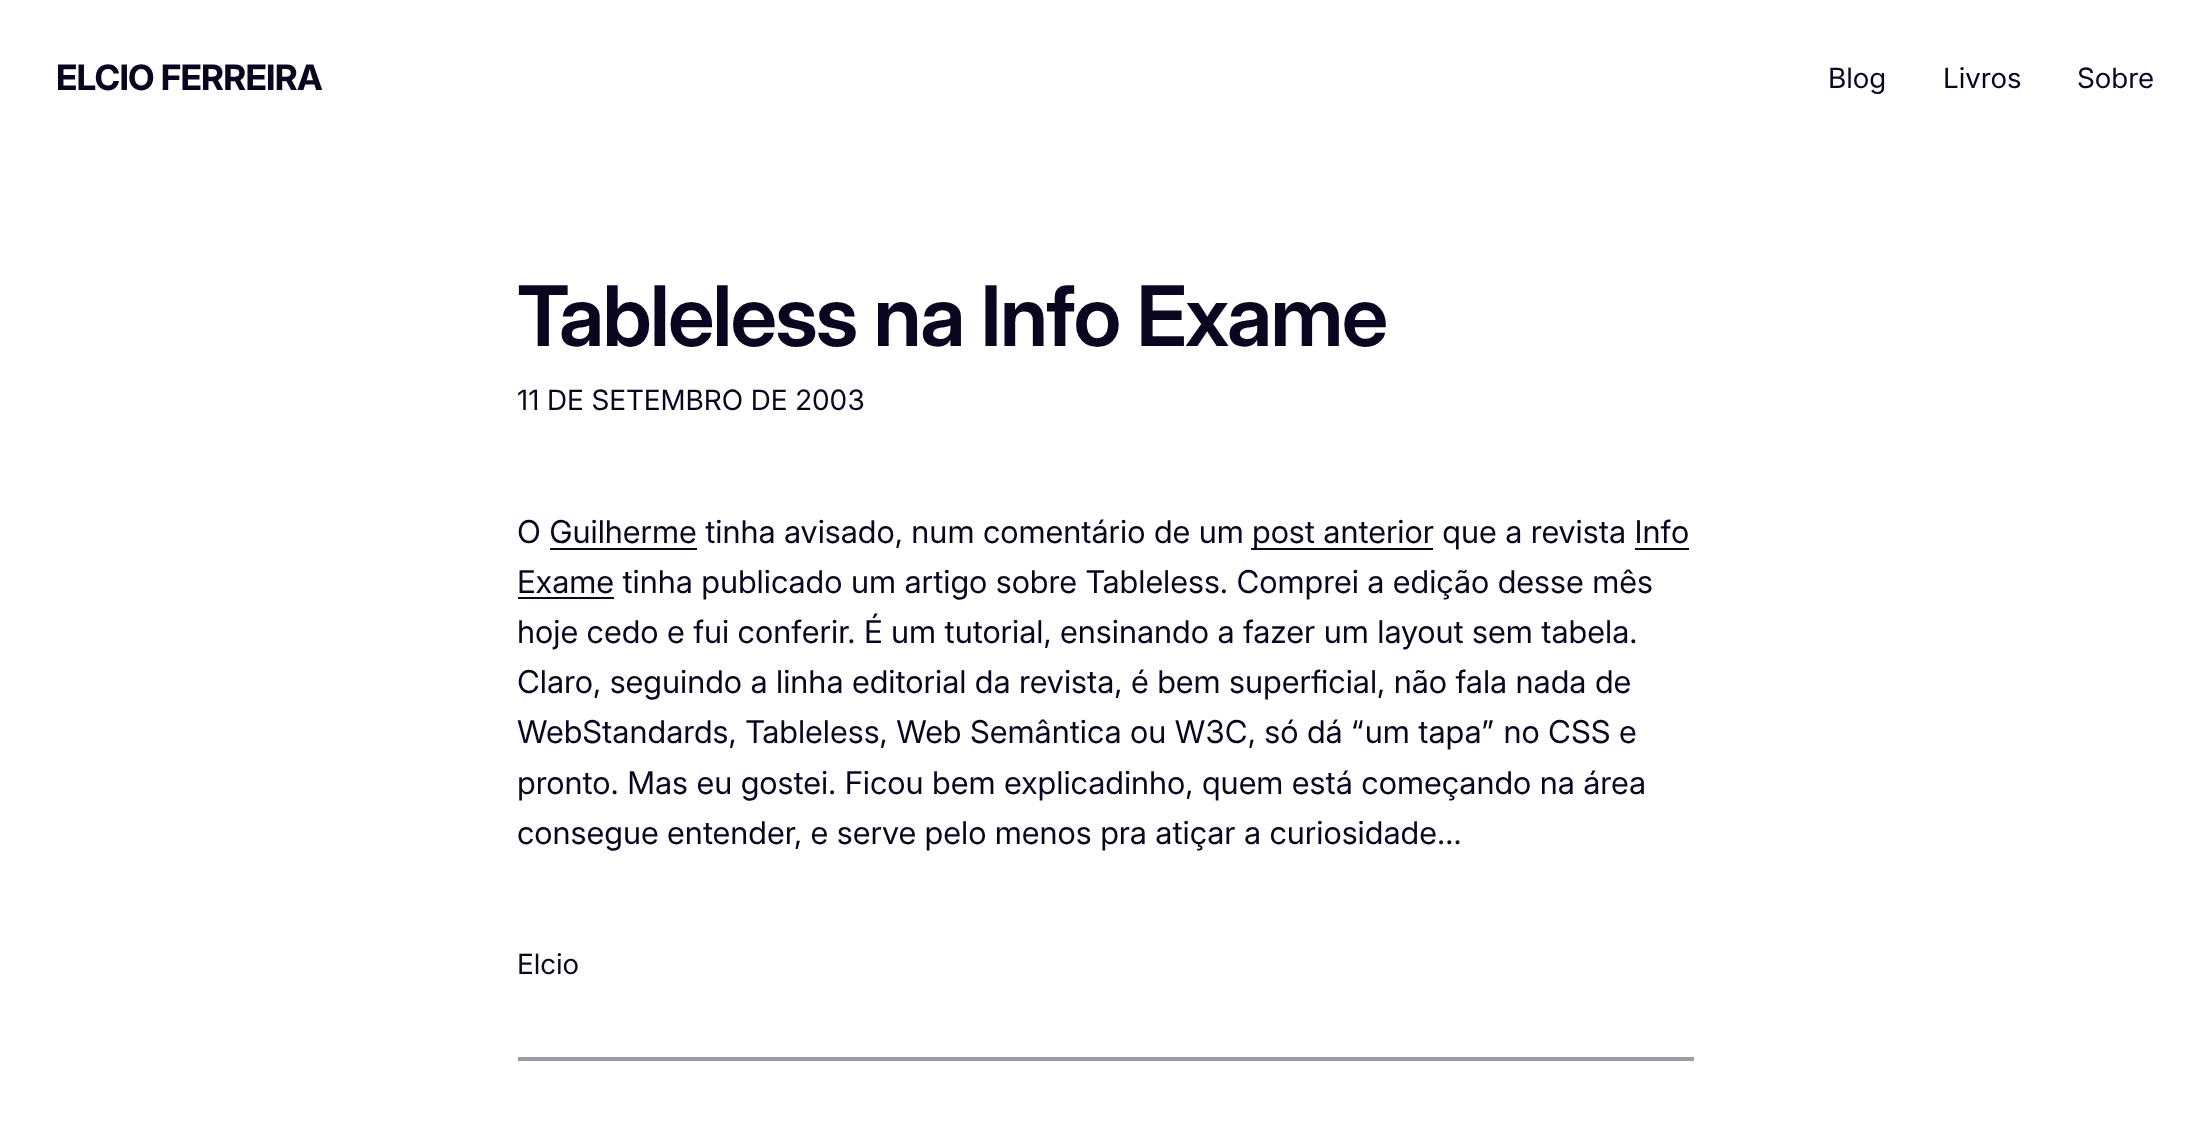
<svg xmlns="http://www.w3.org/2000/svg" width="2209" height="1131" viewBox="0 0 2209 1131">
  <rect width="100%" height="100%" fill="#fff"/>
  <path d="M1251 548h182v2H1251z" fill="#0b0620"/>
  <path d="M550 548h147v2H550z" fill="#0b0620"/>
  <path d="M1635 548h54v2H1635z" fill="#0b0620"/>
  <path d="M518 597h96v2H518z" fill="#0b0620"/>
  <path d="M518 1057h1176v4H518z" fill="#9d9ba6"/>
  <text x="56" y="90" font-family="Inter" font-size="35" font-weight="bold" letter-spacing="-0.75" fill="#0b0620">ELCIO FERREIRA</text>
  <g font-family="'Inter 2'" font-size="28" fill="#0b0620">
    <text x="1828" y="88">Blog</text>
    <text x="1943" y="88">Livros</text>
    <text x="2077" y="88">Sobre</text>
  </g>
  <text x="517" y="346" font-family="Inter" font-size="83.5" font-weight="600" letter-spacing="-1.7" fill="#0b0620">Tableless na Info Exame</text>
  <text x="517" y="410" font-family="'Inter 2'" font-size="28" fill="#0b0620">11 DE SETEMBRO DE 2003</text>
  <g font-family="Inter" font-size="31.4" fill="#0b0620">
    <text x="517" y="543">O Guilherme tinha avisado, num comentário de um</text>
    <text x="1252" y="543">post anterior que a revista Info</text>
    <text x="517" y="593">Exame tinha publicado um artigo sobre Tableless. Comprei a edição desse mês</text>
    <text x="517" y="643">hoje cedo e fui conferir. É um tutorial, ensinando a fazer um layout sem tabela.</text>
    <text x="517" y="693">Claro, seguindo a linha editorial da revista, é bem superficial, não fala nada de</text>
    <text x="517" y="743">WebStandards, Tableless, Web Semântica ou W3C, só dá “um tapa” no CSS e</text>
    <text x="517" y="794">pronto. Mas eu gostei. Ficou bem explicadinho, quem está começando na área</text>
    <text x="517" y="844">consegue entender, e serve pelo menos pra atiçar a curiosidade…</text>
  </g>
  <text x="517" y="974" font-family="'Inter 2'" font-size="28" fill="#0b0620">Elcio</text>
</svg>
